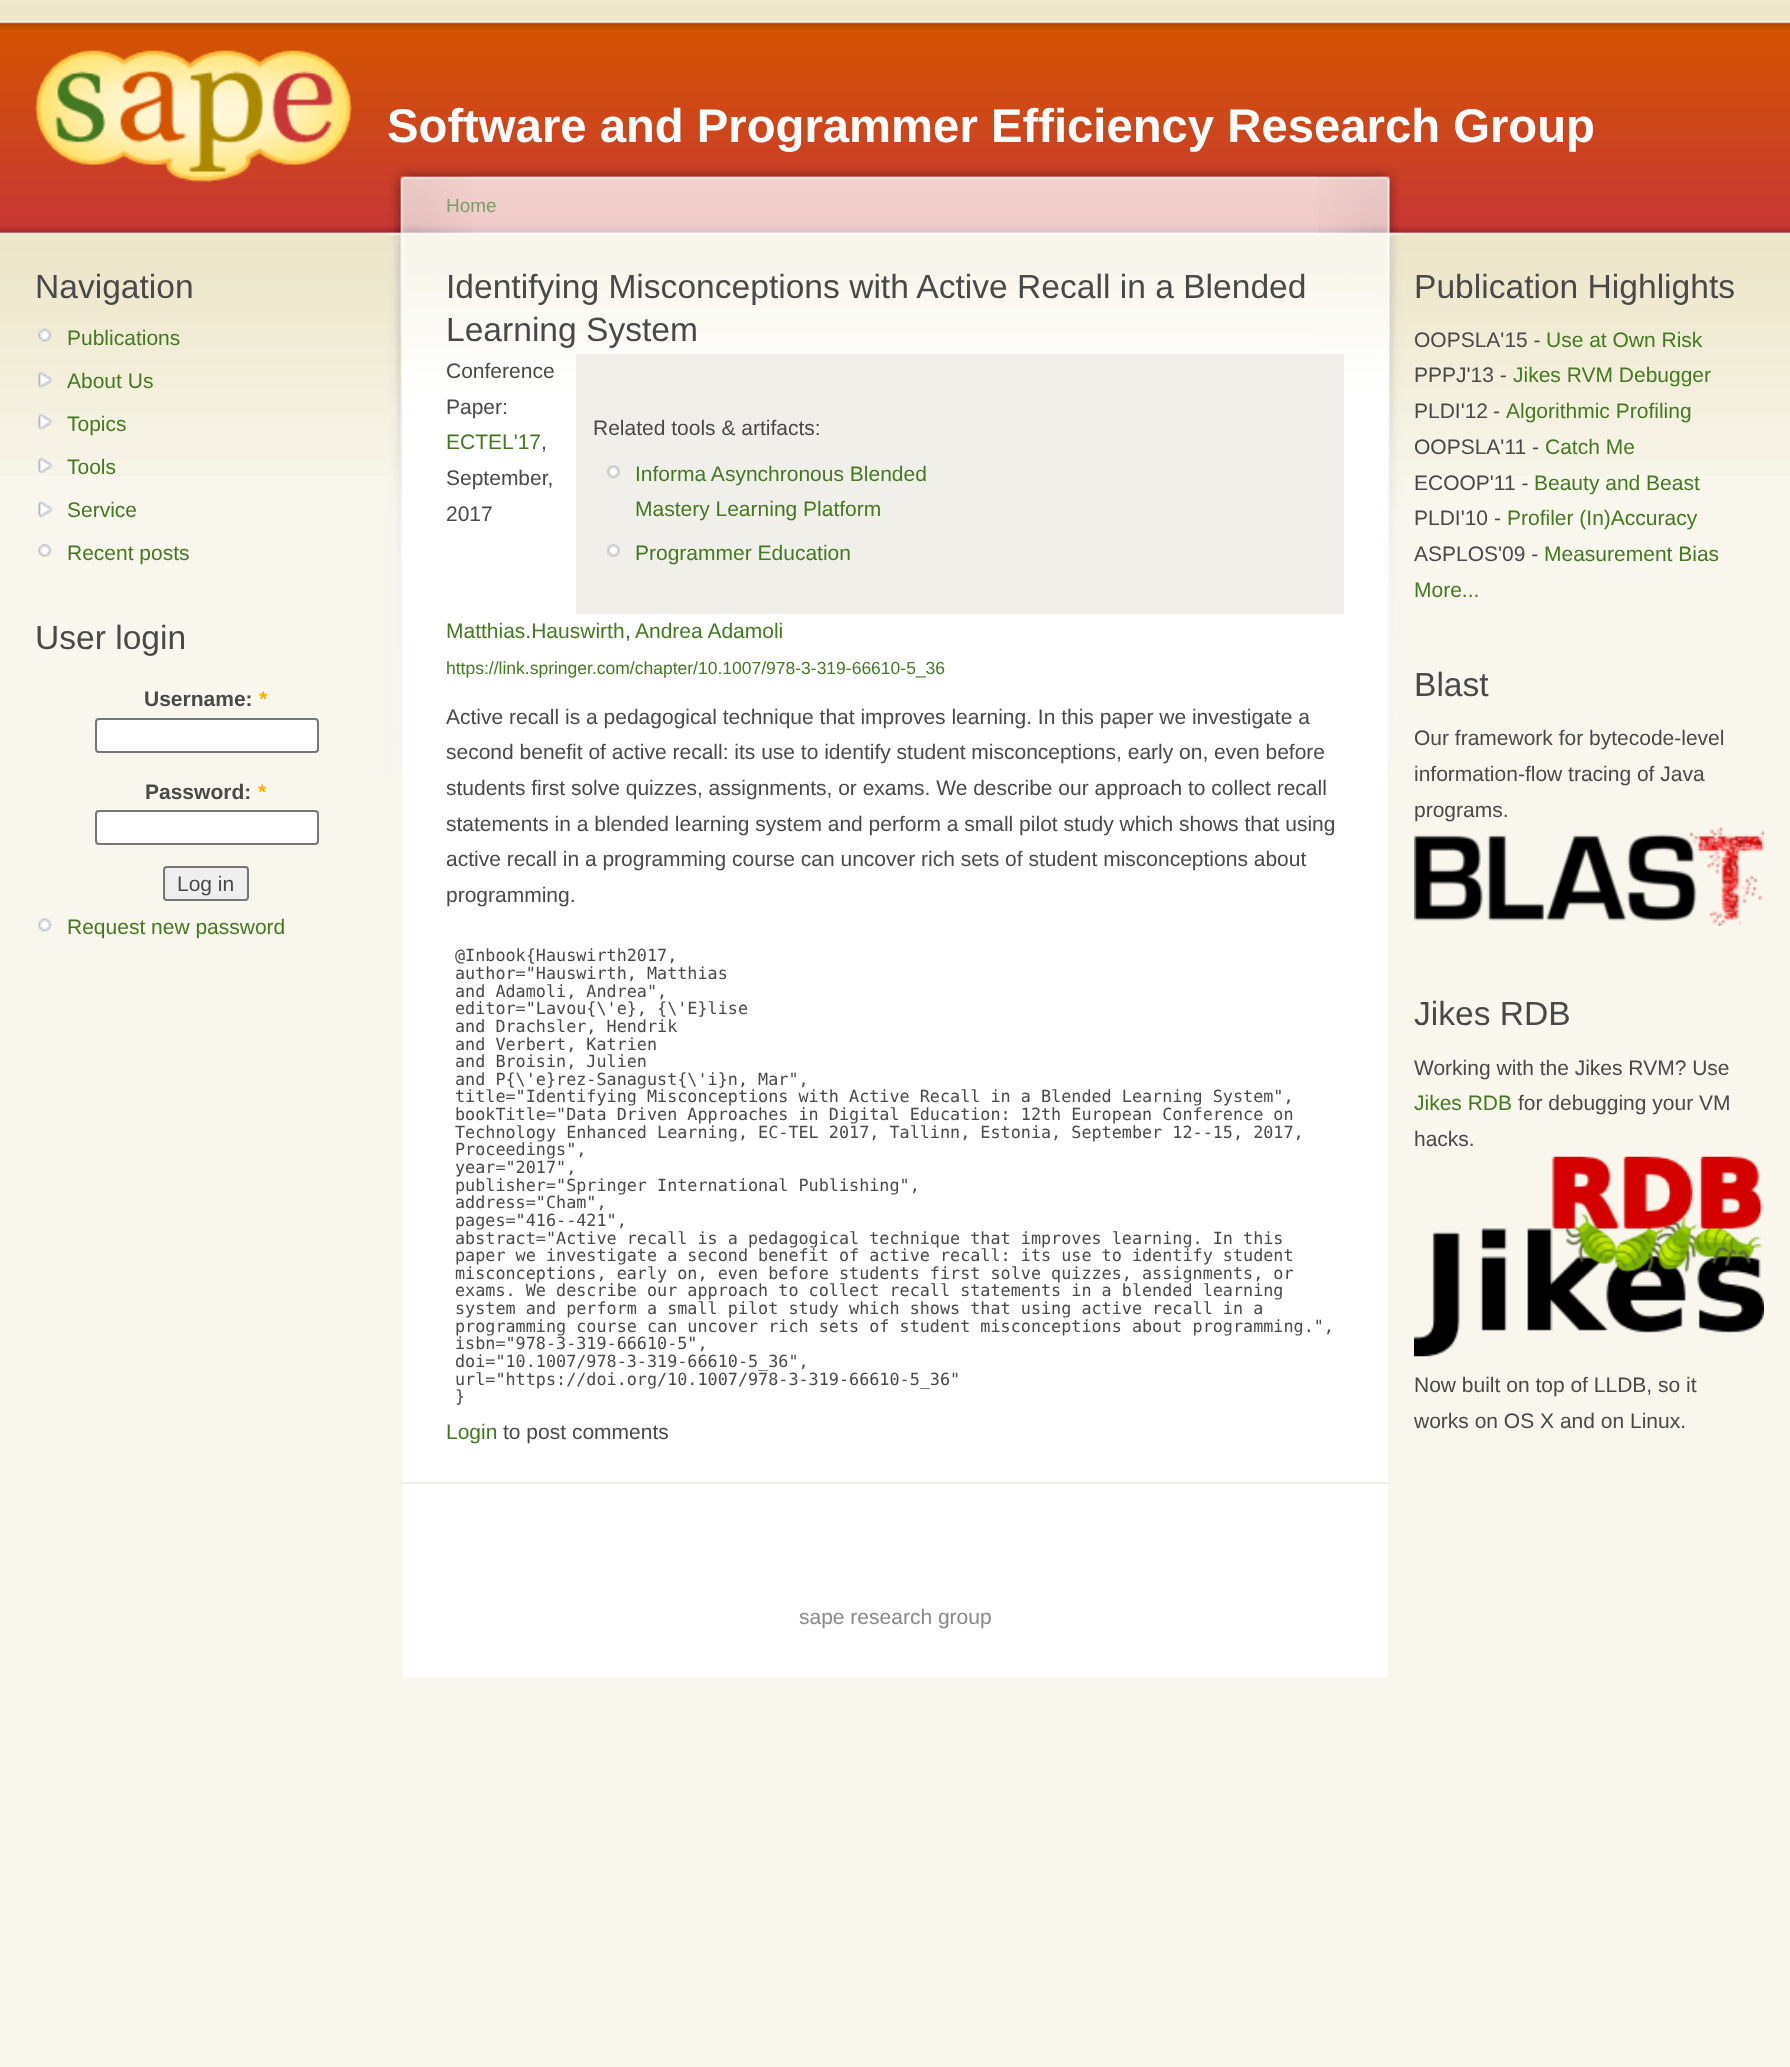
<svg xmlns="http://www.w3.org/2000/svg" width="1790" height="2067" viewBox="0 0 1790 2067">
  <rect width="100%" height="100%" fill="#f8f6ed"/>
  <path d="M0 0h1790v2H0z" fill="#f0ead1"/>
  <path d="M0 2h1790v19H0z" fill="#eee7cc"/>
  <image x="0" y="21" width="1790" height="455" href="img/1.png"/>
  <image x="35" y="50" width="317" height="132" href="img/2.png"/>
  <image x="38" y="328" width="14" height="14" href="img/3.png"/>
  <image x="38" y="371" width="15" height="18" href="img/4.png"/>
  <image x="38" y="413" width="15" height="18" href="img/5.png"/>
  <image x="38" y="457" width="15" height="17" href="img/6.png"/>
  <image x="38" y="500" width="15" height="18" href="img/7.png"/>
  <image x="38" y="544" width="14" height="13" href="img/8.png"/>
  <rect x="96" y="719" width="222" height="33" rx="3" fill="#fff" stroke="#767676" stroke-width="2"/>
  <rect x="96" y="811" width="222" height="33" rx="3" fill="#fff" stroke="#767676" stroke-width="2"/>
  <rect x="164" y="867" width="84" height="33" rx="3" fill="#efefef" stroke="#767676" stroke-width="2"/>
  <image x="38" y="918" width="14" height="14" href="img/9.png"/>
  <path d="M403 511h985v1166H403z" fill="#fff"/>
  <image x="402" y="161" width="916" height="350" href="img/10.png"/>
  <image x="1318" y="161" width="87" height="616" href="img/11.png"/>
  <image x="385" y="168" width="88" height="609" href="img/12.png"/>
  <path d="M401 1482h989v2H401z" fill="#f1efe9"/>
  <path d="M576 354h768v260H576z" fill="#f1efe9"/>
  <image x="607" y="465" width="13" height="14" href="img/13.png"/>
  <image x="607" y="544" width="13" height="13" href="img/14.png"/>
  <image x="1414" y="827" width="350" height="99" href="img/15.png"/>
  <image x="1414" y="1156" width="350" height="201" href="img/16.png"/>
  <text x="387" y="142" font-family="Liberation Sans" font-size="47.25" font-weight="bold" fill="#fff">Software and Programmer Efficiency Research Group</text>
  <text x="35" y="298" font-family="Liberation Sans" font-size="33.6" fill="#494949">Navigation</text>
  <g font-family="Liberation Sans" font-size="21" fill="#447821">
    <text x="67" y="345">Publications</text>
    <text x="67" y="388">About Us</text>
    <text x="67" y="431">Topics</text>
    <text x="67" y="474">Tools</text>
    <text x="67" y="517">Service</text>
    <text x="67" y="560">Recent posts</text>
  </g>
  <text x="35" y="649" font-family="Liberation Sans" font-size="33.6" fill="#494949">User login</text>
  <text x="144" y="706" font-family="Liberation Sans" font-size="21" font-weight="bold" fill="#494949">Username:</text>
  <text x="259" y="706" font-family="Liberation Sans" font-size="21" font-weight="bold" fill="#ffae00">*</text>
  <text x="145" y="799" font-family="Liberation Sans" font-size="21" font-weight="bold" fill="#494949">Password:</text>
  <text x="258" y="799" font-family="Liberation Sans" font-size="21" font-weight="bold" fill="#ffae00">*</text>
  <text x="177" y="891" font-family="Liberation Sans" font-size="21" fill="#494949">Log in</text>
  <text x="67" y="934" font-family="Liberation Sans" font-size="21" fill="#447821">Request new password</text>
  <text x="446" y="212" font-family="Liberation Sans" font-size="19" fill="#7a9f67">Home</text>
  <g font-family="Liberation Sans" font-size="33.6" fill="#494949">
    <text x="446" y="298">Identifying Misconceptions with Active Recall in a Blended</text>
    <text x="446" y="341">Learning System</text>
  </g>
  <g font-family="Liberation Sans" font-size="21" fill="#494949">
    <text x="446" y="378">Conference</text>
    <text x="446" y="414">Paper:</text>
  </g>
  <text x="446" y="449" font-family="Liberation Sans" font-size="21" fill="#447821">ECTEL'17</text>
  <g font-family="Liberation Sans" font-size="21" fill="#494949">
    <text x="541" y="449">,</text>
    <text x="446" y="485">September,</text>
    <text x="446" y="521">2017</text>
    <text x="593" y="435">Related tools &amp; artifacts:</text>
  </g>
  <g font-family="Liberation Sans" font-size="21" fill="#447821">
    <text x="635" y="481">Informa Asynchronous Blended</text>
    <text x="635" y="516">Mastery Learning Platform</text>
    <text x="635" y="560">Programmer Education</text>
    <text x="446" y="638">Matthias.Hauswirth</text>
  </g>
  <text x="625" y="638" font-family="Liberation Sans" font-size="21" fill="#494949">,</text>
  <text x="635" y="638" font-family="Liberation Sans" font-size="21" fill="#447821">Andrea Adamoli</text>
  <text x="446" y="674" font-family="Liberation Sans" font-size="17.5" fill="#447821">https://link.springer.com/chapter/10.1007/978-3-319-66610-5_36</text>
  <g font-family="Liberation Sans" font-size="21" fill="#494949">
    <text x="446" y="724">Active recall is a pedagogical technique that improves learning. In this paper we investigate a</text>
    <text x="446" y="759">second benefit of active recall: its use to identify student misconceptions, early on, even before</text>
    <text x="446" y="795">students first solve quizzes, assignments, or exams. We describe our approach to collect recall</text>
    <text x="446" y="831">statements in a blended learning system and perform a small pilot study which shows that using</text>
    <text x="446" y="866">active recall in a programming course can uncover rich sets of student misconceptions about</text>
    <text x="446" y="902">programming.</text>
  </g>
  <g font-family="DejaVu Sans Mono" font-size="16.8" fill="#494949">
    <text x="455" y="961">@Inbook{Hauswirth2017,</text>
    <text x="455" y="979">author="Hauswirth, Matthias</text>
    <text x="455" y="997">and Adamoli, Andrea",</text>
    <text x="455" y="1014">editor="Lavou{\'e}, {\'E}lise</text>
    <text x="455" y="1032">and Drachsler, Hendrik</text>
    <text x="455" y="1050">and Verbert, Katrien</text>
    <text x="455" y="1067">and Broisin, Julien</text>
    <text x="455" y="1085">and P{\'e}rez-Sanagust{\'i}n, Mar",</text>
    <text x="455" y="1102">title="Identifying Misconceptions with Active Recall in a Blended Learning System",</text>
    <text x="455" y="1120">bookTitle="Data Driven Approaches in Digital Education: 12th European Conference on</text>
    <text x="455" y="1138">Technology Enhanced Learning, EC-TEL 2017, Tallinn, Estonia, September 12--15, 2017,</text>
    <text x="455" y="1155">Proceedings",</text>
    <text x="455" y="1173">year="2017",</text>
    <text x="455" y="1191">publisher="Springer International Publishing",</text>
    <text x="455" y="1208">address="Cham",</text>
    <text x="455" y="1226">pages="416--421",</text>
    <text x="455" y="1244">abstract="Active recall is a pedagogical technique that improves learning. In this</text>
    <text x="455" y="1261">paper we investigate a second benefit of active recall: its use to identify student</text>
    <text x="455" y="1279">misconceptions, early on, even before students first solve quizzes, assignments, or</text>
    <text x="455" y="1296">exams. We describe our approach to collect recall statements in a blended learning</text>
    <text x="455" y="1314">system and perform a small pilot study which shows that using active recall in a</text>
    <text x="455" y="1332">programming course can uncover rich sets of student misconceptions about programming.",</text>
    <text x="455" y="1349">isbn="978-3-319-66610-5",</text>
    <text x="455" y="1367">doi="10.1007/978-3-319-66610-5_36",</text>
    <text x="455" y="1385">url="https://doi.org/10.1007/978-3-319-66610-5_36"</text>
    <text x="455" y="1402">}</text>
  </g>
  <text x="446" y="1439" font-family="Liberation Sans" font-size="21" fill="#447821">Login</text>
  <text x="503" y="1439" font-family="Liberation Sans" font-size="21" fill="#494949">to post comments</text>
  <text x="799" y="1624" font-family="Liberation Sans" font-size="21" fill="#898989">sape research group</text>
  <text x="1414" y="298" font-family="Liberation Sans" font-size="33.6" fill="#494949">Publication Highlights</text>
  <text x="1414" y="347" font-family="Liberation Sans" font-size="21" fill="#494949">OOPSLA'15 -</text>
  <text x="1546" y="347" font-family="Liberation Sans" font-size="21" fill="#447821">Use at Own Risk</text>
  <text x="1414" y="382" font-family="Liberation Sans" font-size="21" fill="#494949">PPPJ'13 -</text>
  <text x="1513" y="382" font-family="Liberation Sans" font-size="21" fill="#447821">Jikes RVM Debugger</text>
  <text x="1414" y="418" word-spacing="-1" font-family="Liberation Sans" font-size="21" fill="#494949">PLDI'12 -</text>
  <text x="1506" y="418" font-family="Liberation Sans" font-size="21" fill="#447821">Algorithmic Profiling</text>
  <text x="1414" y="454" font-family="Liberation Sans" font-size="21" fill="#494949">OOPSLA'11 -</text>
  <text x="1545" y="454" font-family="Liberation Sans" font-size="21" fill="#447821">Catch Me</text>
  <text x="1414" y="490" font-family="Liberation Sans" font-size="21" fill="#494949">ECOOP'11 -</text>
  <text x="1534" y="490" font-family="Liberation Sans" font-size="21" fill="#447821">Beauty and Beast</text>
  <text x="1414" y="525" font-family="Liberation Sans" font-size="21" fill="#494949">PLDI'10 -</text>
  <text x="1507" y="525" font-family="Liberation Sans" font-size="21" fill="#447821">Profiler (In)Accuracy</text>
  <text x="1414" y="561" font-family="Liberation Sans" font-size="21" fill="#494949">ASPLOS'09 -</text>
  <g font-family="Liberation Sans" font-size="21" fill="#447821">
    <text x="1544" y="561">Measurement Bias</text>
    <text x="1414" y="597">More...</text>
  </g>
  <text x="1414" y="696" font-family="Liberation Sans" font-size="33.6" fill="#494949">Blast</text>
  <g font-family="Liberation Sans" font-size="21" fill="#494949">
    <text x="1414" y="745">Our framework for bytecode-level</text>
    <text x="1414" y="781">information-flow tracing of Java</text>
    <text x="1414" y="817">programs.</text>
  </g>
  <text x="1414" y="1025" font-family="Liberation Sans" font-size="33.6" fill="#494949">Jikes RDB</text>
  <text x="1414" y="1075" font-family="Liberation Sans" font-size="21" fill="#494949">Working with the Jikes RVM? Use</text>
  <text x="1414" y="1110" font-family="Liberation Sans" font-size="21" fill="#447821">Jikes RDB</text>
  <g font-family="Liberation Sans" font-size="21" fill="#494949">
    <text x="1518" y="1110">for debugging your VM</text>
    <text x="1414" y="1146">hacks.</text>
    <text x="1414" y="1392">Now built on top of LLDB, so it</text>
    <text x="1414" y="1428">works on OS X and on Linux.</text>
  </g>
</svg>
